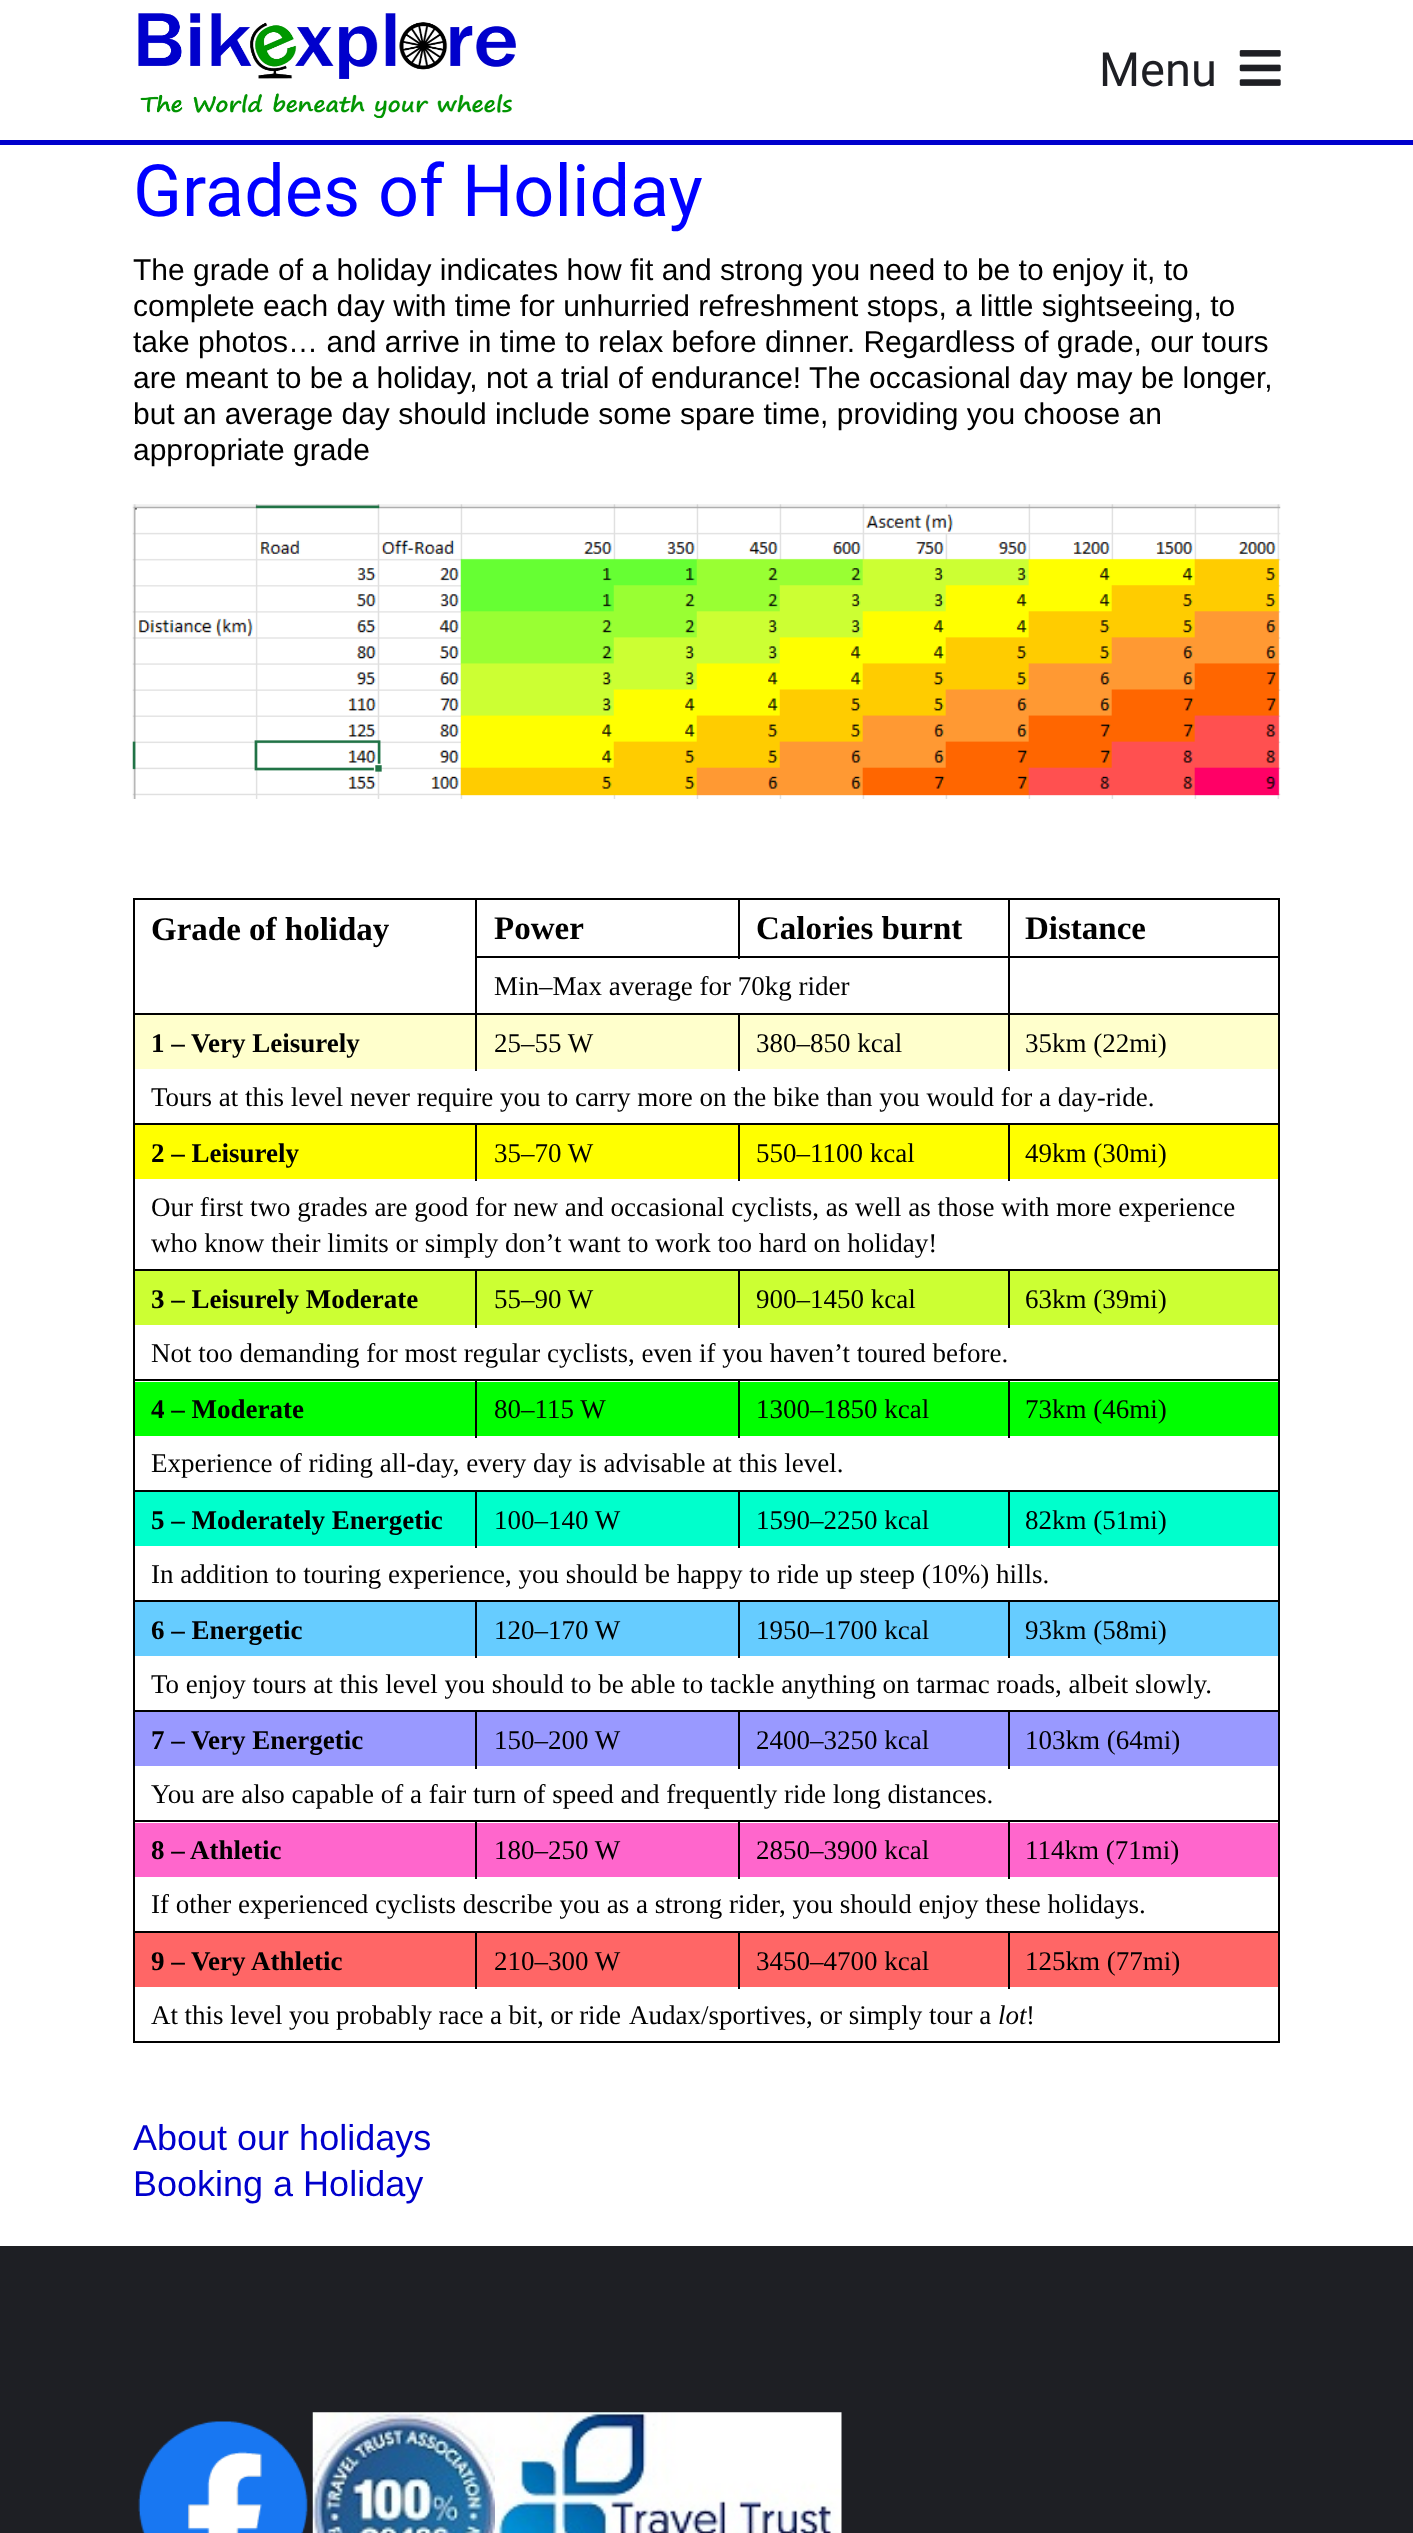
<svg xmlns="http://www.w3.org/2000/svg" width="1413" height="2533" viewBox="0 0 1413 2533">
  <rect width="100%" height="100%" fill="#fff"/>
  <path d="M0 140h1413v5H0z" fill="#00c"/>
  <image x="138" y="13" width="378" height="106" href="img/1.png"/>
  <image x="1239" y="50" width="42" height="36" href="img/2.png"/>
  <image x="132" y="504" width="1149" height="295" href="img/3.png"/>
  <path d="M133 898h1147v2H133z" fill="#000"/>
  <path d="M1278 956h2v1087H1278z" fill="#000"/>
  <path d="M1278 898h2v61H1278z" fill="#000"/>
  <path d="M1008 1013h2v58H1008z" fill="#000"/>
  <path d="M1008 1013h272v2H1008z" fill="#000"/>
  <path d="M1008 956h2v59H1008z" fill="#000"/>
  <path d="M1008 956h272v2H1008z" fill="#000"/>
  <path d="M1008 898h2v61H1008z" fill="#000"/>
  <path d="M738 956h272v2H738z" fill="#000"/>
  <path d="M738 898h2v61H738z" fill="#000"/>
  <path d="M475 1013h2v58H475z" fill="#000"/>
  <path d="M738 1013h2v58H738z" fill="#000"/>
  <path d="M475 1013h535v2H475z" fill="#000"/>
  <path d="M475 956h2v59H475z" fill="#000"/>
  <path d="M475 956h265v2H475z" fill="#000"/>
  <path d="M475 898h2v61H475z" fill="#000"/>
  <path d="M475 1123h2v58H475z" fill="#000"/>
  <path d="M738 1123h2v58H738z" fill="#000"/>
  <path d="M1008 1123h2v58H1008z" fill="#000"/>
  <path d="M475 1269h2v59H475z" fill="#000"/>
  <path d="M738 1269h2v59H738z" fill="#000"/>
  <path d="M1008 1269h2v59H1008z" fill="#000"/>
  <path d="M475 1379h2v59H475z" fill="#000"/>
  <path d="M738 1379h2v59H738z" fill="#000"/>
  <path d="M1008 1379h2v59H1008z" fill="#000"/>
  <path d="M475 1490h2v58H475z" fill="#000"/>
  <path d="M738 1490h2v58H738z" fill="#000"/>
  <path d="M1008 1490h2v58H1008z" fill="#000"/>
  <path d="M475 1600h2v58H475z" fill="#000"/>
  <path d="M738 1600h2v58H738z" fill="#000"/>
  <path d="M1008 1600h2v58H1008z" fill="#000"/>
  <path d="M475 1710h2v59H475z" fill="#000"/>
  <path d="M738 1710h2v59H738z" fill="#000"/>
  <path d="M1008 1710h2v59H1008z" fill="#000"/>
  <path d="M475 1820h2v59H475z" fill="#000"/>
  <path d="M738 1820h2v59H738z" fill="#000"/>
  <path d="M1008 1820h2v59H1008z" fill="#000"/>
  <path d="M475 1931h2v58H475z" fill="#000"/>
  <path d="M738 1931h2v58H738z" fill="#000"/>
  <path d="M1008 1931h2v58H1008z" fill="#000"/>
  <path d="M133 2041h1147v2H133z" fill="#000"/>
  <path d="M133 1931h2v112H133z" fill="#000"/>
  <path d="M133 1931h1147v2H133z" fill="#000"/>
  <path d="M133 1820h2v113H133z" fill="#000"/>
  <path d="M133 1820h1147v2H133z" fill="#000"/>
  <path d="M133 1710h2v113H133z" fill="#000"/>
  <path d="M133 1710h1147v2H133z" fill="#000"/>
  <path d="M133 1600h2v112H133z" fill="#000"/>
  <path d="M133 1600h1147v2H133z" fill="#000"/>
  <path d="M133 1490h2v112H133z" fill="#000"/>
  <path d="M133 1490h1147v2H133z" fill="#000"/>
  <path d="M133 1379h2v113H133z" fill="#000"/>
  <path d="M133 1379h1147v2H133z" fill="#000"/>
  <path d="M133 1269h2v113H133z" fill="#000"/>
  <path d="M133 1269h1147v2H133z" fill="#000"/>
  <path d="M133 1123h2v148H133z" fill="#000"/>
  <path d="M133 1123h1147v2H133z" fill="#000"/>
  <path d="M133 1013h2v112H133z" fill="#000"/>
  <path d="M133 1013h344v2H133z" fill="#000"/>
  <path d="M133 956h2v59H133z" fill="#000"/>
  <path d="M133 898h2v61H133z" fill="#000"/>
  <path d="M135 1015h340v54H135z" fill="#ffc"/>
  <path d="M477 1015h261v54H477z" fill="#ffc"/>
  <path d="M740 1015h268v54H740z" fill="#ffc"/>
  <path d="M1010 1015h268v54H1010z" fill="#ffc"/>
  <path d="M135 1125h340v54H135z" fill="#ff0"/>
  <path d="M477 1125h261v54H477z" fill="#ff0"/>
  <path d="M740 1125h268v54H740z" fill="#ff0"/>
  <path d="M1010 1125h268v54H1010z" fill="#ff0"/>
  <path d="M135 1271h340v54H135z" fill="#cf3"/>
  <path d="M477 1271h261v54H477z" fill="#cf3"/>
  <path d="M740 1271h268v54H740z" fill="#cf3"/>
  <path d="M1010 1271h268v54H1010z" fill="#cf3"/>
  <path d="M135 1382h340v54H135z" fill="#0f0"/>
  <path d="M477 1382h261v54H477z" fill="#0f0"/>
  <path d="M740 1382h268v54H740z" fill="#0f0"/>
  <path d="M1010 1382h268v54H1010z" fill="#0f0"/>
  <path d="M135 1492h340v54H135z" fill="#0fc"/>
  <path d="M477 1492h261v54H477z" fill="#0fc"/>
  <path d="M740 1492h268v54H740z" fill="#0fc"/>
  <path d="M1010 1492h268v54H1010z" fill="#0fc"/>
  <path d="M135 1602h340v54H135z" fill="#6cf"/>
  <path d="M477 1602h261v54H477z" fill="#6cf"/>
  <path d="M740 1602h268v54H740z" fill="#6cf"/>
  <path d="M1010 1602h268v54H1010z" fill="#6cf"/>
  <path d="M135 1712h340v54H135z" fill="#99f"/>
  <path d="M477 1712h261v54H477z" fill="#99f"/>
  <path d="M740 1712h268v54H740z" fill="#99f"/>
  <path d="M1010 1712h268v54H1010z" fill="#99f"/>
  <path d="M135 1823h340v54H135z" fill="#f6c"/>
  <path d="M477 1823h261v54H477z" fill="#f6c"/>
  <path d="M740 1823h268v54H740z" fill="#f6c"/>
  <path d="M1010 1823h268v54H1010z" fill="#f6c"/>
  <path d="M135 1933h340v54H135z" fill="#f66"/>
  <path d="M477 1933h261v54H477z" fill="#f66"/>
  <path d="M740 1933h268v54H740z" fill="#f66"/>
  <path d="M1010 1933h268v54H1010z" fill="#f66"/>
  <path d="M0 2246h1413v287H0z" fill="#1e1f24"/>
  <image x="138" y="2421" width="170" height="112" href="img/4.png"/>
  <image x="312" y="2412" width="183" height="121" href="img/5.png"/>
  <image x="495" y="2412" width="347" height="121" href="img/6.png"/>
  <text x="1099" y="86" font-family="Roboto" font-size="47" fill="#1e1f24">Menu</text>
  <text x="133" y="216" font-family="Roboto" font-size="72" fill="#00f">Grades of Holiday</text>
  <g font-family="Liberation Sans" font-size="30" fill="#000">
    <text x="133" y="280">The grade of a holiday indicates how fit and strong you need to be to enjoy it, to</text>
    <text x="133" y="316">complete each day with time for unhurried refreshment stops, a little sightseeing, to</text>
    <text x="133" y="352">take photos… and arrive in time to relax before dinner. Regardless of grade, our tours</text>
    <text x="133" y="388">are meant to be a holiday, not a trial of endurance! The occasional day may be longer,</text>
    <text x="133" y="424">but an average day should include some spare time, providing you choose an</text>
    <text x="133" y="460">appropriate grade</text>
  </g>
  <g font-family="Liberation Serif" font-size="33" font-weight="bold" fill="#000">
    <text x="151" y="940">Grade of holiday</text>
    <text x="494" y="939">Power</text>
    <text x="756" y="939">Calories burnt</text>
    <text x="1025" y="939">Distance</text>
  </g>
  <text x="494" y="995" font-family="Liberation Serif" font-size="27" fill="#000">Min–Max average for 70kg rider</text>
  <text x="151" y="1052" font-family="Liberation Serif" font-size="27" font-weight="bold" fill="#000">1 – Very Leisurely</text>
  <g font-family="Liberation Serif" font-size="27" fill="#000">
    <text x="494" y="1052">25–55 W</text>
    <text x="756" y="1052">380–850 kcal</text>
    <text x="1025" y="1052">35km (22mi)</text>
    <text x="151" y="1106">Tours at this level never require you to carry more on the bike than you would for a day-ride.</text>
  </g>
  <text x="151" y="1162" font-family="Liberation Serif" font-size="27" font-weight="bold" fill="#000">2 – Leisurely</text>
  <g font-family="Liberation Serif" font-size="27" fill="#000">
    <text x="494" y="1162">35–70 W</text>
    <text x="756" y="1162">550–1100 kcal</text>
    <text x="1025" y="1162">49km (30mi)</text>
    <text x="151" y="1216">Our first two grades are good for new and occasional cyclists, as well as those with more experience</text>
    <text x="151" y="1252">who know their limits or simply don’t want to work too hard on holiday!</text>
  </g>
  <text x="151" y="1308" font-family="Liberation Serif" font-size="27" font-weight="bold" fill="#000">3 – Leisurely Moderate</text>
  <g font-family="Liberation Serif" font-size="27" fill="#000">
    <text x="494" y="1308">55–90 W</text>
    <text x="756" y="1308">900–1450 kcal</text>
    <text x="1025" y="1308">63km (39mi)</text>
    <text x="151" y="1362">Not too demanding for most regular cyclists, even if you haven’t toured before.</text>
  </g>
  <text x="151" y="1418" font-family="Liberation Serif" font-size="27" font-weight="bold" fill="#000">4 – Moderate</text>
  <g font-family="Liberation Serif" font-size="27" fill="#000">
    <text x="494" y="1418">80–115 W</text>
    <text x="756" y="1418">1300–1850 kcal</text>
    <text x="1025" y="1418">73km (46mi)</text>
    <text x="151" y="1472">Experience of riding all-day, every day is advisable at this level.</text>
  </g>
  <text x="151" y="1529" font-family="Liberation Serif" font-size="27" font-weight="bold" fill="#000">5 – Moderately Energetic</text>
  <g font-family="Liberation Serif" font-size="27" fill="#000">
    <text x="494" y="1529">100–140 W</text>
    <text x="756" y="1529">1590–2250 kcal</text>
    <text x="1025" y="1529">82km (51mi)</text>
    <text x="151" y="1583">In addition to touring experience, you should be happy to ride up steep (10%) hills.</text>
  </g>
  <text x="151" y="1639" font-family="Liberation Serif" font-size="27" font-weight="bold" fill="#000">6 – Energetic</text>
  <g font-family="Liberation Serif" font-size="27" fill="#000">
    <text x="494" y="1639">120–170 W</text>
    <text x="756" y="1639">1950–1700 kcal</text>
    <text x="1025" y="1639">93km (58mi)</text>
    <text x="151" y="1693">To enjoy tours at this level you should to be able to tackle anything on tarmac roads, albeit slowly.</text>
  </g>
  <text x="151" y="1749" font-family="Liberation Serif" font-size="27" font-weight="bold" fill="#000">7 – Very Energetic</text>
  <g font-family="Liberation Serif" font-size="27" fill="#000">
    <text x="494" y="1749">150–200 W</text>
    <text x="756" y="1749">2400–3250 kcal</text>
    <text x="1025" y="1749">103km (64mi)</text>
    <text x="151" y="1803">You are also capable of a fair turn of speed and frequently ride long distances.</text>
  </g>
  <text x="151" y="1859" font-family="Liberation Serif" font-size="27" font-weight="bold" fill="#000">8 – Athletic</text>
  <g font-family="Liberation Serif" font-size="27" fill="#000">
    <text x="494" y="1859">180–250 W</text>
    <text x="756" y="1859">2850–3900 kcal</text>
    <text x="1025" y="1859">114km (71mi)</text>
    <text x="151" y="1913">If other experienced cyclists describe you as a strong rider, you should enjoy these holidays.</text>
  </g>
  <g font-family="Liberation Serif" font-size="27" font-weight="bold" fill="#000">
    <text x="151" y="1970">9 – Very</text>
    <text x="251" y="1970">Athletic</text>
  </g>
  <g font-family="Liberation Serif" font-size="27" fill="#000">
    <text x="494" y="1970">210–300 W</text>
    <text x="756" y="1970">3450–4700 kcal</text>
    <text x="1025" y="1970">125km (77mi)</text>
    <text x="151" y="2024" word-spacing="-0.25">At this level you probably race a bit, or ride</text>
    <text x="629" y="2024">Audax/sportives, or simply tour a</text>
  </g>
  <text x="998" y="2024" font-family="Liberation Serif" font-size="27" font-style="italic" fill="#000">lot</text>
  <text x="1026" y="2024" font-family="Liberation Serif" font-size="27" fill="#000">!</text>
  <g font-family="Liberation Sans" font-size="36" fill="#00c">
    <text x="133" y="2150">About our holidays</text>
    <text x="133" y="2196">Booking a Holiday</text>
  </g>
</svg>
